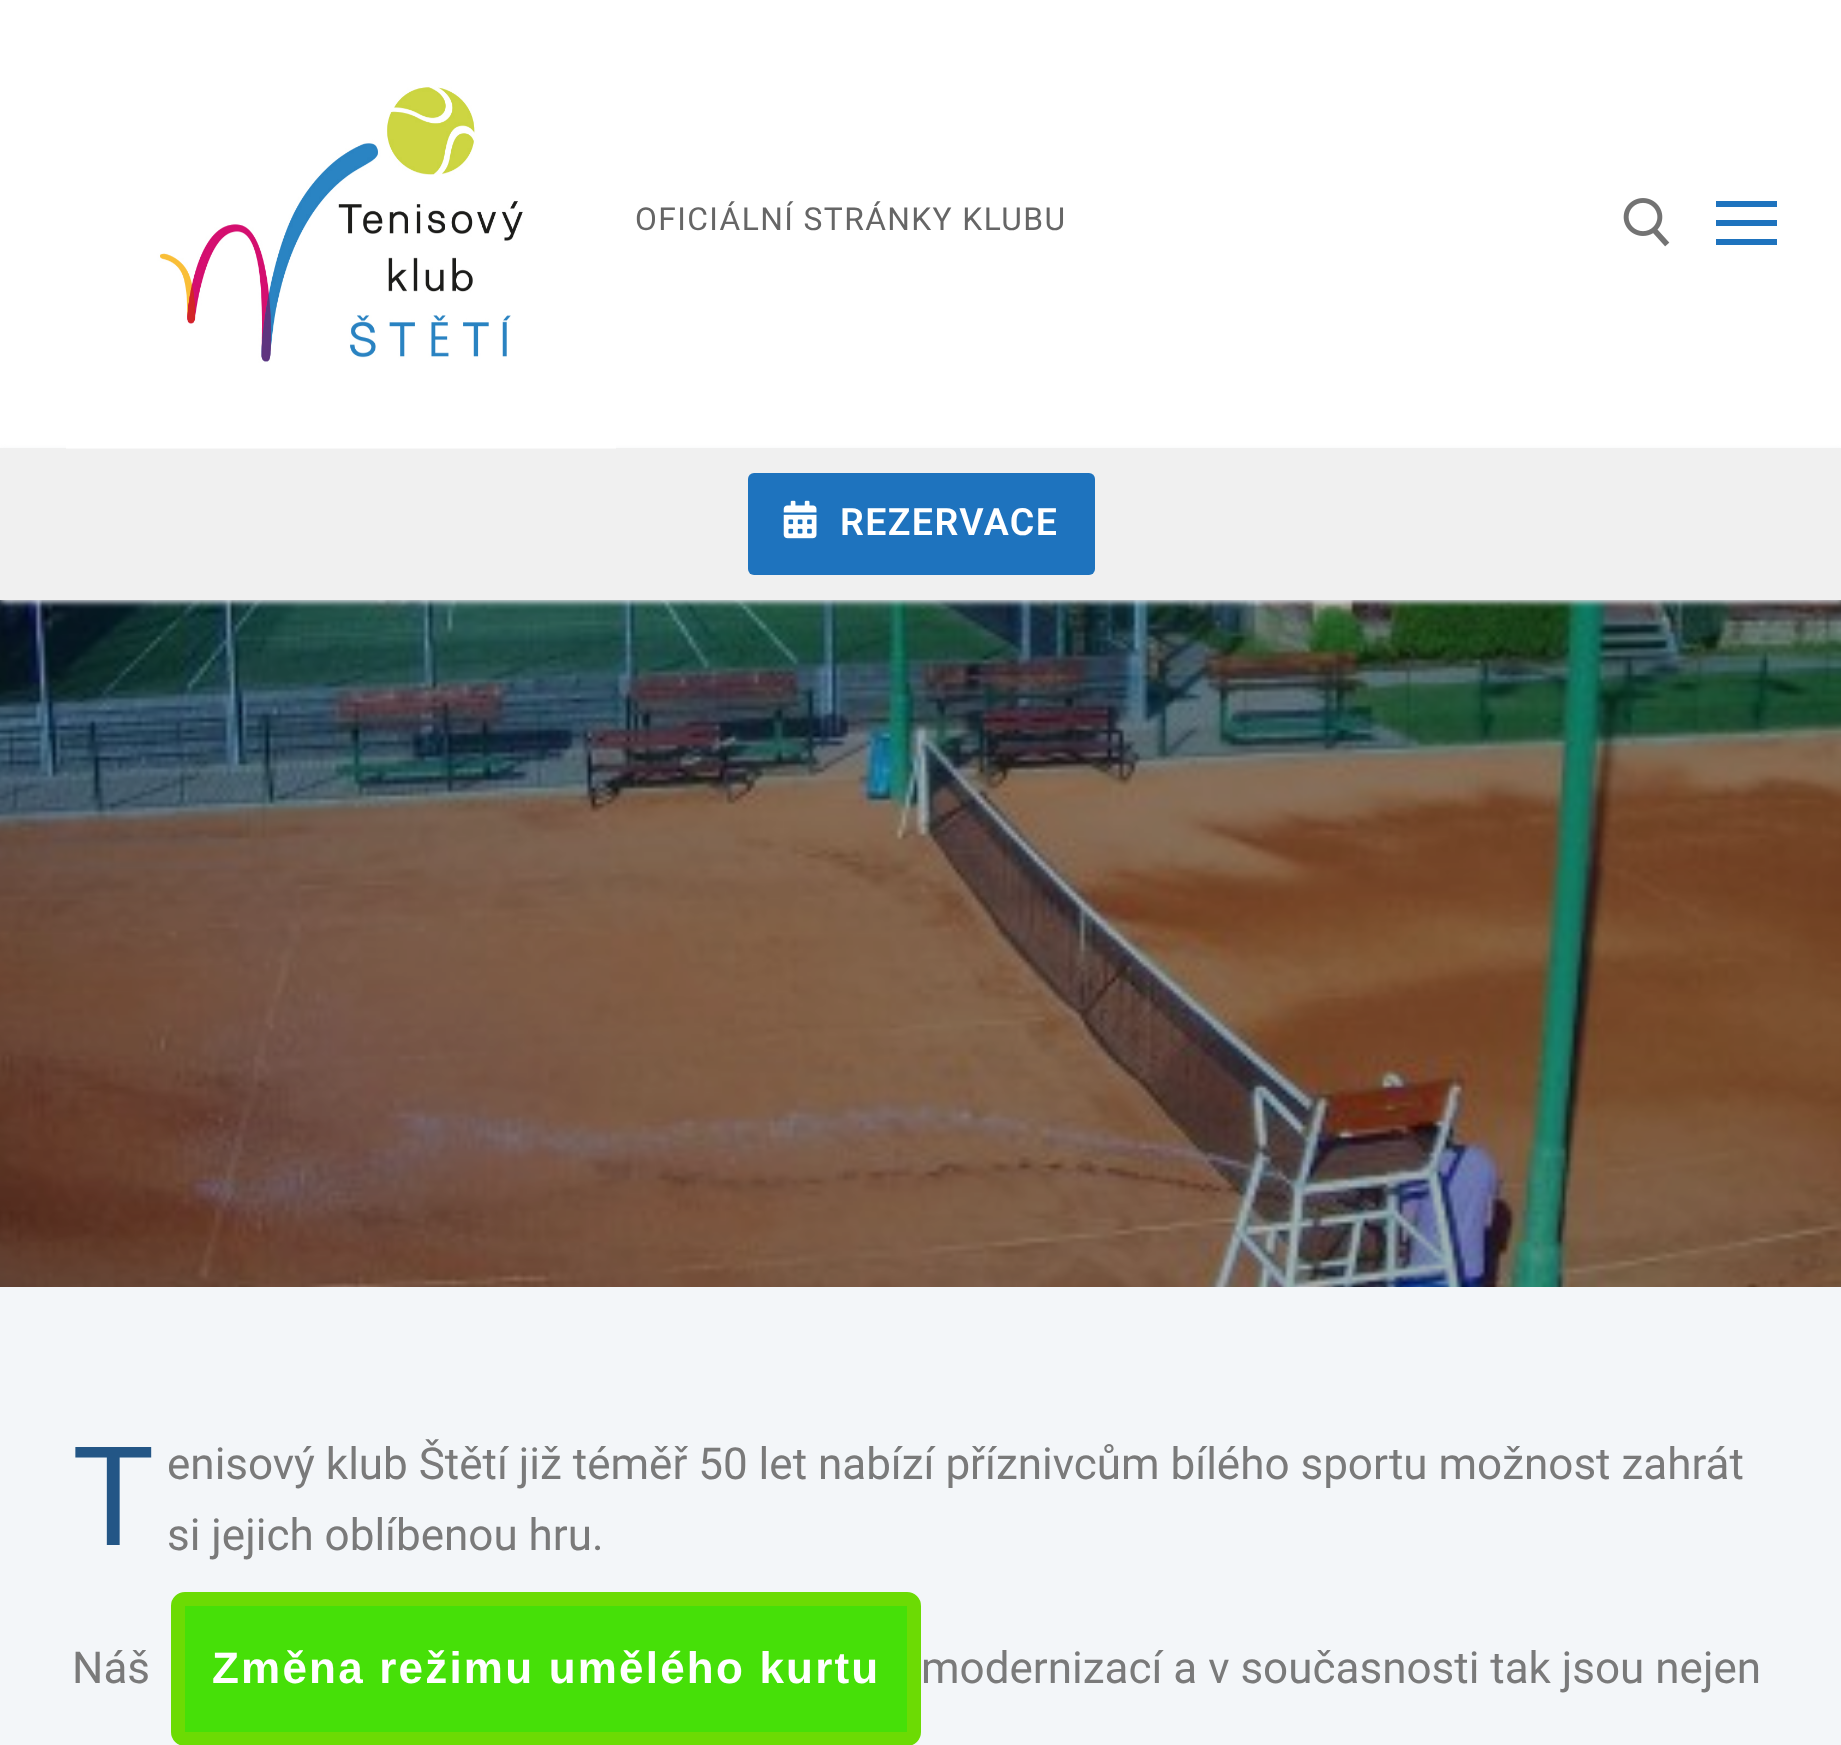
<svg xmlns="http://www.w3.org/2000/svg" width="1841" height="1745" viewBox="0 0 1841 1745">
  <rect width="100%" height="100%" fill="#fff"/>
  <image x="0" y="600" width="1841" height="687" href="img/4.png"/>
  <path d="M0 451h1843v151H0z" fill="#e1e5ea" filter="blur(3px)"/>
  <path d="M0 448h1841v152H0z" fill="#f0f0f0"/>
  <image x="66" y="87" width="550" height="362" href="img/1.png"/>
  <image x="1623" y="198" width="47" height="49" href="img/2.png"/>
  <path d="M1716 220h61v6H1716z" fill="#1e73be"/>
  <path d="M1716 201h61v6H1716z" fill="#1e73be"/>
  <path d="M1716 239h61v6H1716z" fill="#1e73be"/>
  <rect x="748" y="473" width="347" height="102" rx="6" fill="#1e73be"/>
  <image x="783" y="500" width="34" height="39" href="img/3.png"/>
  <path d="M0 1287h1841v458H0z" fill="#f3f6f9"/>
  <rect x="178" y="1599" width="736" height="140" rx="7" fill="#46e008" stroke="#6cdb04" stroke-width="14"/>
  <text x="635" y="230" font-family="Roboto" font-size="31.75" letter-spacing="1.4" fill="#666">OFICIÁLNÍ STRÁNKY KLUBU</text>
  <text x="840" y="535" font-family="Roboto" font-size="37.5" font-weight="600" letter-spacing="1.4" fill="#fff">REZERVACE</text>
  <text x="72" y="1545" font-family="Roboto" font-size="138" fill="#235686">T</text>
  <g font-family="Roboto" font-size="44" fill="#7a7a7a">
    <text x="167" y="1479">enisový klub Štětí již téměř 50 let nabízí příznivcům bílého sportu možnost zahrát</text>
    <text x="167" y="1550">si jejich oblíbenou hru.</text>
    <text x="72" y="1683">Náš</text>
    <text x="921" y="1683">modernizací a v současnosti tak jsou nejen</text>
  </g>
  <text x="212" y="1683" font-family="Liberation Sans" font-size="44" font-weight="bold" letter-spacing="2.2" fill="#fff">Změna režimu umělého kurtu</text>
</svg>
